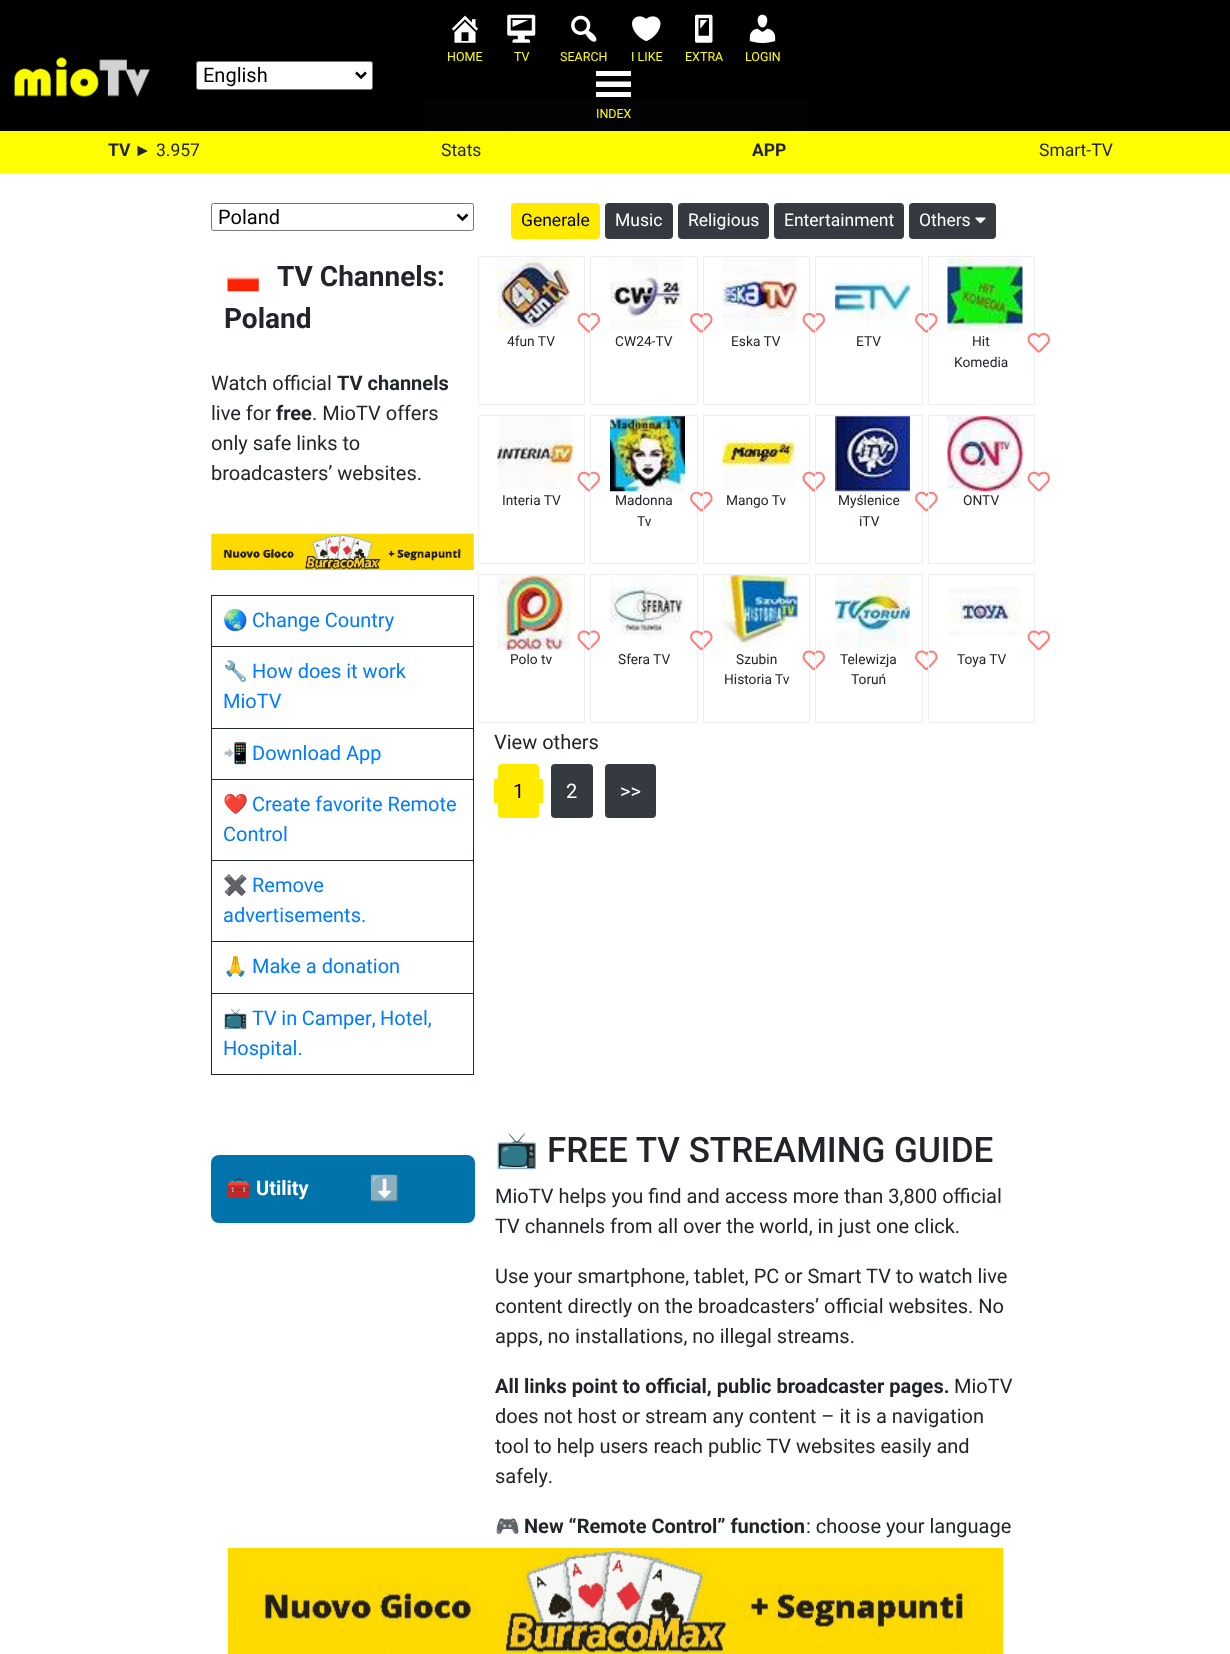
<svg xmlns="http://www.w3.org/2000/svg" width="1230" height="1654" viewBox="0 0 1230 1654">
  <defs>
    <linearGradient id="g1" gradientUnits="userSpaceOnUse" x1="615" y1="6.2" x2="615" y2="131"><stop offset="0" stop-color="#010101"/><stop offset="1" stop-color="#030303"/></linearGradient>
  </defs>
  <rect width="100%" height="100%" fill="#fff"/>
  <path d="M0 0h1230v131H0z" fill="#000"/>
  <image x="14" y="57" width="136" height="40" href="img/1.png"/>
  <rect x="196.5" y="61.5" width="176" height="28" rx="2" fill="#fff" stroke="#767676"/>
  <path d="M356 72.5L361 77.5L366 72.5" fill="none" stroke="#000" stroke-width="2.5"/>
  <path d="M423 100h385v31H423z" fill="url(#g1)"/>
  <image x="451" y="15" width="28" height="28" href="img/2.png"/>
  <image x="507" y="14" width="29" height="29" href="img/3.png"/>
  <image x="571" y="15" width="26" height="27" href="img/4.png"/>
  <image x="632" y="16" width="29" height="26" href="img/5.png"/>
  <image x="695" y="14" width="18" height="29" href="img/6.png"/>
  <image x="749" y="14" width="27" height="29" href="img/7.png"/>
  <path d="M631 76V71H596V76ZM631 87V81.5H596V87ZM631 97V92H596V97Z" fill="#fff"/>
  <path d="M0 131h1230v42H0z" fill="#ff0"/>
  <rect x="211.5" y="203.5" width="262" height="27" rx="2" fill="none" stroke="#767676"/>
  <path d="M457.5 214.5L462.5 219.5L467.5 214.5" fill="none" stroke="#000" stroke-width="2.5"/>
  <image x="227" y="276" width="32" height="16" href="img/8.png"/>
  <image x="211" y="533" width="263" height="37" href="img/9.png"/>
  <path d="M211 595h263v1H211z" fill="#212529"/>
  <path d="M211 646h263v1H211z" fill="#212529"/>
  <path d="M211 728h263v1H211z" fill="#212529"/>
  <path d="M211 779h263v1H211z" fill="#212529"/>
  <path d="M211 860h263v1H211z" fill="#212529"/>
  <path d="M211 941h263v1H211z" fill="#212529"/>
  <path d="M211 993h263v1H211z" fill="#212529"/>
  <path d="M473 993h1v82H473z" fill="#212529"/>
  <path d="M473 941h1v53H473z" fill="#212529"/>
  <path d="M473 860h1v83H473z" fill="#212529"/>
  <path d="M473 779h1v82H473z" fill="#212529"/>
  <path d="M473 728h1v52H473z" fill="#212529"/>
  <path d="M473 646h1v83H473z" fill="#212529"/>
  <path d="M473 595h1v53H473z" fill="#212529"/>
  <path d="M211 1074h263v1H211z" fill="#212529"/>
  <path d="M211 993h1v82H211z" fill="#212529"/>
  <path d="M211 941h1v53H211z" fill="#212529"/>
  <path d="M211 860h1v83H211z" fill="#212529"/>
  <path d="M211 779h1v82H211z" fill="#212529"/>
  <path d="M211 728h1v52H211z" fill="#212529"/>
  <path d="M211 646h1v83H211z" fill="#212529"/>
  <path d="M211 595h1v53H211z" fill="#212529"/>
  <rect x="511" y="203" width="89" height="36" rx="4" fill="#ffea00"/>
  <rect x="605" y="203" width="68" height="36" rx="4" fill="#343a40"/>
  <rect x="678" y="203" width="91" height="36" rx="4" fill="#343a40"/>
  <rect x="774" y="203" width="130" height="36" rx="4" fill="#343a40"/>
  <rect x="909" y="203" width="87" height="36" rx="4" fill="#343a40"/>
  <image x="975" y="217" width="11" height="7" href="img/10.png"/>
  <path d="M478.5 256.5h106v148H478.5z" fill="none" stroke="#eee"/>
  <image x="497" y="257" width="75" height="74" href="img/11.png"/>
  <image x="577" y="313" width="23" height="20" href="img/12.png"/>
  <path d="M590.5 256.5h107v148H590.5z" fill="none" stroke="#eee"/>
  <image x="610" y="257" width="73" height="73" href="img/13.png"/>
  <image x="690" y="313" width="23" height="20" href="img/14.png"/>
  <path d="M703.5 256.5h106v148H703.5z" fill="none" stroke="#eee"/>
  <image x="722" y="257" width="76" height="75" href="img/15.png"/>
  <image x="802" y="313" width="23" height="20" href="img/12.png"/>
  <path d="M815.5 256.5h107v148H815.5z" fill="none" stroke="#eee"/>
  <image x="835" y="280" width="75" height="50" href="img/16.png"/>
  <image x="915" y="313" width="23" height="20" href="img/14.png"/>
  <path d="M928.5 256.5h106v148H928.5z" fill="none" stroke="#eee"/>
  <image x="947" y="257" width="76" height="76" href="img/17.png"/>
  <image x="1027" y="333" width="23" height="20" href="img/12.png"/>
  <path d="M478.5 415.5h106v148H478.5z" fill="none" stroke="#eee"/>
  <image x="497" y="416" width="76" height="73" href="img/18.png"/>
  <image x="577" y="471" width="23" height="21" href="img/19.png"/>
  <path d="M590.5 415.5h107v148H590.5z" fill="none" stroke="#eee"/>
  <image x="610" y="416" width="75" height="76" href="img/20.png"/>
  <image x="690" y="491" width="23" height="21" href="img/21.png"/>
  <path d="M703.5 415.5h106v148H703.5z" fill="none" stroke="#eee"/>
  <image x="722" y="438" width="75" height="52" href="img/22.png"/>
  <image x="802" y="471" width="23" height="21" href="img/19.png"/>
  <path d="M815.5 415.5h107v148H815.5z" fill="none" stroke="#eee"/>
  <image x="835" y="416" width="75" height="76" href="img/23.png"/>
  <image x="915" y="491" width="23" height="21" href="img/21.png"/>
  <path d="M928.5 415.5h106v148H928.5z" fill="none" stroke="#eee"/>
  <image x="947" y="416" width="76" height="76" href="img/24.png"/>
  <image x="1027" y="471" width="23" height="21" href="img/19.png"/>
  <path d="M478.5 574.5h106v148H478.5z" fill="none" stroke="#eee"/>
  <image x="497" y="575" width="75" height="75" href="img/25.png"/>
  <image x="577" y="630" width="23" height="21" href="img/26.png"/>
  <path d="M590.5 574.5h107v148H590.5z" fill="none" stroke="#eee"/>
  <image x="610" y="575" width="75" height="62" href="img/27.png"/>
  <image x="690" y="630" width="23" height="21" href="img/28.png"/>
  <path d="M703.5 574.5h106v148H703.5z" fill="none" stroke="#eee"/>
  <image x="722" y="575" width="76" height="73" href="img/29.png"/>
  <image x="802" y="650" width="23" height="21" href="img/26.png"/>
  <path d="M815.5 574.5h107v148H815.5z" fill="none" stroke="#eee"/>
  <image x="835" y="575" width="75" height="75" href="img/30.png"/>
  <image x="915" y="650" width="23" height="21" href="img/28.png"/>
  <path d="M928.5 574.5h106v148H928.5z" fill="none" stroke="#eee"/>
  <image x="947" y="587" width="75" height="48" href="img/31.png"/>
  <image x="1027" y="630" width="23" height="21" href="img/26.png"/>
  <path d="M494 779h49v24H494z" fill="#ffea00"/>
  <rect x="498" y="764" width="41" height="54" rx="4" fill="#ffea00"/>
  <rect x="551" y="764" width="42" height="54" rx="4" fill="#343a40"/>
  <rect x="605" y="764" width="51" height="54" rx="4" fill="#343a40"/>
  <rect x="211" y="1155" width="264" height="68" rx="8" fill="#0073aa"/>
  <image x="228" y="1548" width="775" height="106" href="img/32.png"/>
  <text x="203" y="82" font-family="Roboto" font-size="20" fill="#000">English</text>
  <g font-family="Roboto" font-size="12.5" fill="#ff0">
    <text x="447" y="61">HOME</text>
    <text x="514" y="61">TV</text>
    <text x="560" y="61">SEARCH</text>
    <text x="631" y="61">I LIKE</text>
    <text x="685" y="61">EXTRA</text>
    <text x="745" y="61">LOGIN</text>
    <text x="596" y="118">INDEX</text>
  </g>
  <text x="108" y="156" font-family="Roboto" font-size="17.5" font-weight="bold" fill="#212529">TV</text>
  <text x="134" y="156" font-family="Liberation Sans" font-size="17.5" font-weight="bold" fill="#212529">►</text>
  <g font-family="Roboto" font-size="17.5" fill="#212529">
    <text x="156" y="156">3.957</text>
    <text x="441" y="156">Stats</text>
  </g>
  <text x="752" y="156" font-family="Roboto" font-size="17.5" font-weight="bold" fill="#212529">APP</text>
  <text x="1039" y="156" font-family="Roboto" font-size="17.5" fill="#212529">Smart-TV</text>
  <text x="218" y="224" font-family="Roboto" font-size="20" fill="#000">Poland</text>
  <g font-family="Roboto" font-size="28" font-weight="bold" fill="#212529">
    <text x="277" y="286">TV Channels:</text>
    <text x="224" y="328">Poland</text>
  </g>
  <text x="211" y="390" font-family="Roboto" font-size="20" fill="#212529">Watch official</text>
  <text x="337" y="390" font-family="Roboto" font-size="20" font-weight="bold" fill="#212529">TV channels</text>
  <text x="211" y="420" font-family="Roboto" font-size="20" fill="#212529">live for</text>
  <text x="276" y="420" font-family="Roboto" font-size="20" font-weight="bold" fill="#212529">free</text>
  <g font-family="Roboto" font-size="20" fill="#212529">
    <text x="312" y="420">. MioTV offers</text>
    <text x="211" y="450">only safe links to</text>
    <text x="211" y="480">broadcasters’ websites.</text>
  </g>
  <text x="223" y="627" font-family="Noto Color Emoji" font-size="20" fill="#212529">🌏</text>
  <text x="252" y="627" font-family="Roboto" font-size="20" fill="#007bff">Change Country</text>
  <text x="223" y="678" font-family="Noto Color Emoji" font-size="20" fill="#212529">🔧</text>
  <g font-family="Roboto" font-size="20" fill="#007bff">
    <text x="252" y="678">How does it work</text>
    <text x="223" y="708">MioTV</text>
  </g>
  <text x="223" y="760" font-family="Noto Color Emoji" font-size="20" fill="#212529">📲</text>
  <text x="252" y="760" font-family="Roboto" font-size="20" fill="#007bff">Download App</text>
  <text x="223" y="811" font-family="Noto Color Emoji" font-size="20" fill="#007bff">❤️</text>
  <g font-family="Roboto" font-size="20" fill="#007bff">
    <text x="252" y="811">Create favorite Remote</text>
    <text x="223" y="841">Control</text>
  </g>
  <text x="223" y="892" font-family="Noto Color Emoji" font-size="20" fill="#212529">✖️</text>
  <g font-family="Roboto" font-size="20" fill="#007bff">
    <text x="252" y="892">Remove</text>
    <text x="223" y="922">advertisements.</text>
  </g>
  <text x="223" y="973" font-family="Noto Color Emoji" font-size="20" fill="#212529">🙏</text>
  <text x="252" y="973" font-family="Roboto" font-size="20" fill="#007bff">Make a donation</text>
  <text x="223" y="1025" font-family="Noto Color Emoji" font-size="20" fill="#007bff">📺</text>
  <g font-family="Roboto" font-size="20" fill="#007bff">
    <text x="252" y="1025" word-spacing="-0.5">TV in Camper, Hotel,</text>
    <text x="223" y="1055">Hospital.</text>
  </g>
  <text x="521" y="226" font-family="Roboto" font-size="17.5" fill="#000">Generale</text>
  <g font-family="Roboto" font-size="17.5" fill="#fff">
    <text x="615" y="226">Music</text>
    <text x="688" y="226">Religious</text>
    <text x="784" y="226">Entertainment</text>
    <text x="919" y="226">Others</text>
  </g>
  <g font-family="Roboto" font-size="13.75" fill="#212529">
    <text x="507" y="346">4fun TV</text>
    <text x="615" y="346">CW24-TV</text>
    <text x="731" y="346">Eska TV</text>
    <text x="856" y="346">ETV</text>
    <text x="972" y="346">Hit</text>
    <text x="954" y="367">Komedia</text>
    <text x="502" y="505">Interia TV</text>
    <text x="615" y="505">Madonna</text>
    <text x="637" y="526">Tv</text>
    <text x="726" y="505">Mango Tv</text>
    <text x="838" y="505">Myślenice</text>
    <text x="859" y="526">iTV</text>
    <text x="963" y="505">ONTV</text>
    <text x="510" y="664">Polo tv</text>
    <text x="618" y="664">Sfera TV</text>
    <text x="736" y="664">Szubin</text>
    <text x="724" y="684">Historia Tv</text>
    <text x="840" y="664">Telewizja</text>
    <text x="851" y="684">Toruń</text>
    <text x="957" y="664">Toya TV</text>
  </g>
  <text x="494" y="749" font-family="Roboto" font-size="20" fill="#212529">View others</text>
  <text x="513" y="798" font-family="Roboto" font-size="20" fill="#000">1</text>
  <g font-family="Roboto" font-size="20" fill="#fff">
    <text x="566" y="798">2</text>
    <text x="620" y="798">&gt;&gt;</text>
  </g>
  <text x="226" y="1195" font-family="Noto Color Emoji" font-size="20" font-weight="bold" fill="#fff">🧰</text>
  <text x="256" y="1195" font-family="Roboto" font-size="20" font-weight="bold" fill="#fff">Utility</text>
  <text x="369" y="1197" font-family="Noto Color Emoji" font-size="25" font-weight="bold" fill="#fff">⬇️</text>
  <text x="495" y="1162" font-family="Noto Color Emoji" font-size="35" fill="#212529">📺</text>
  <text x="547" y="1162" font-family="Roboto" font-size="35" font-weight="500" fill="#212529">FREE TV STREAMING GUIDE</text>
  <g font-family="Roboto" font-size="20" fill="#212529">
    <text x="495" y="1203">MioTV helps you find and access more than 3,800 official</text>
    <text x="495" y="1233">TV channels from all over the world, in just one click.</text>
    <text x="495" y="1283">Use your smartphone, tablet, PC or Smart TV to watch live</text>
    <text x="495" y="1313">content directly on the broadcasters’ official websites. No</text>
    <text x="495" y="1343">apps, no installations, no illegal streams.</text>
  </g>
  <text x="495" y="1393" font-family="Roboto" font-size="20" font-weight="bold" fill="#212529">All links point to official, public broadcaster pages.</text>
  <g font-family="Roboto" font-size="20" fill="#212529">
    <text x="954" y="1393">MioTV</text>
    <text x="495" y="1423">does not host or stream any content – it is a navigation</text>
    <text x="495" y="1453">tool to help users reach public TV websites easily and</text>
    <text x="495" y="1483">safely.</text>
  </g>
  <text x="495" y="1533" font-family="Noto Color Emoji" font-size="20" fill="#212529">🎮</text>
  <text x="524" y="1533" font-family="Roboto" font-size="20" font-weight="bold" fill="#212529">New “Remote Control” function</text>
  <text x="806" y="1533" font-family="Roboto" font-size="20" fill="#212529">: choose your language</text>
</svg>
